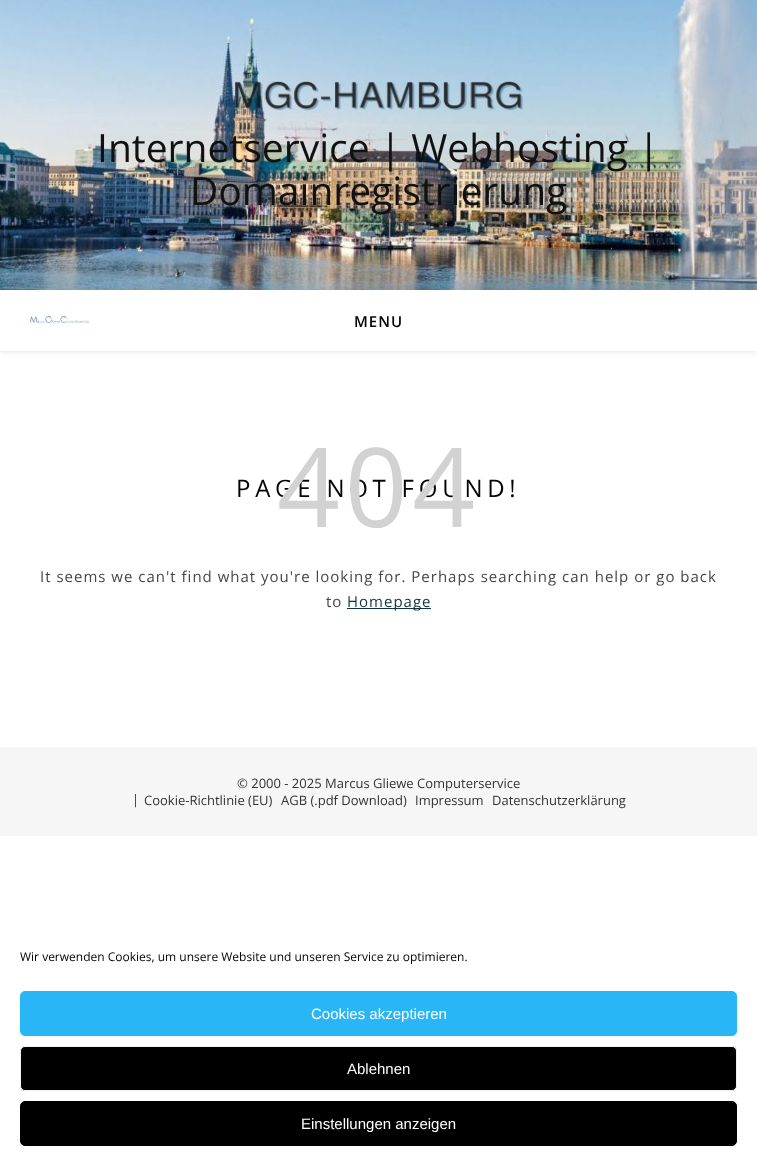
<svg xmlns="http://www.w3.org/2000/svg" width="757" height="1171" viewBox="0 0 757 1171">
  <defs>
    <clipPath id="clip1"><path d="M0 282H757V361H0ZM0 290H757V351H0Z" clip-rule="evenodd"/></clipPath>
  </defs>
  <rect width="100%" height="100%" fill="#fff"/>
  <image x="0" y="0" width="757" height="290" href="img/1.png"/>
  <image x="235" y="81" width="288" height="30" href="img/2.png"/>
  <g clip-path="url(#clip1)">
    <path d="M0 291h757v61H0z" fill="#0000001a" filter="blur(2.5px)"/>
  </g>
  <image x="30" y="316" width="60" height="8" href="img/3.png"/>
  <path d="M347 608h84v1H347z" fill="#113642"/>
  <path d="M0 747h757v89H0z" fill="#f6f6f6"/>
  <rect x="20.5" y="991.5" width="716" height="44" rx="4.5" fill="#29b6f6" stroke="#29b6f6"/>
  <rect x="20.5" y="1046.5" width="716" height="44" rx="4.5" fill="#000" stroke="#f1f1f1"/>
  <rect x="20.5" y="1101.5" width="716" height="44" rx="4.5" fill="#000" stroke="#000"/>
  <g font-family="Open Sans" font-size="39" fill="#111">
    <text x="97" y="162">Internetservice | Webhosting |</text>
    <text x="190" y="205">Domainregistrierung</text>
  </g>
  <text x="354" y="327" font-family="Open Sans" font-size="15" font-weight="600" letter-spacing="1" fill="#030303">MENU</text>
  <text x="236" y="497" font-family="Open Sans" font-size="24" letter-spacing="4.75" fill="#030303">PAGE NOT FOUND!</text>
  <text x="277" y="527" font-family="Open Sans" font-size="110" letter-spacing="4.75" fill="#d2d2d2">404</text>
  <g font-family="Open Sans" font-size="15" letter-spacing="1" fill="#464646">
    <text x="40" y="582">It seems we can't find what you're looking for. Perhaps searching can help or go back</text>
    <text x="326" y="607">to</text>
  </g>
  <text x="347" y="607" font-family="Open Sans" font-size="15" letter-spacing="1" fill="#113642">Homepage</text>
  <g font-family="Open Sans" font-size="13" fill="#333">
    <text x="237" y="788">© 2000 - 2025 Marcus Gliewe Computerservice</text>
    <text x="132" y="804">|</text>
    <text x="144" y="805">Cookie-Richtlinie (EU)</text>
    <text x="281" y="805">AGB (.pdf Download)</text>
    <text x="415" y="805">Impressum</text>
    <text x="492" y="805">Datenschutzerklärung</text>
  </g>
  <text x="20" y="961" font-family="Open Sans" font-size="12" fill="#030303">Wir verwenden Cookies, um unsere Website und unseren Service zu optimieren.</text>
  <g font-family="Liberation Sans" font-size="15" fill="#fff">
    <text x="311" y="1019">Cookies akzeptieren</text>
    <text x="347" y="1074">Ablehnen</text>
    <text x="301" y="1129">Einstellungen anzeigen</text>
  </g>
</svg>
